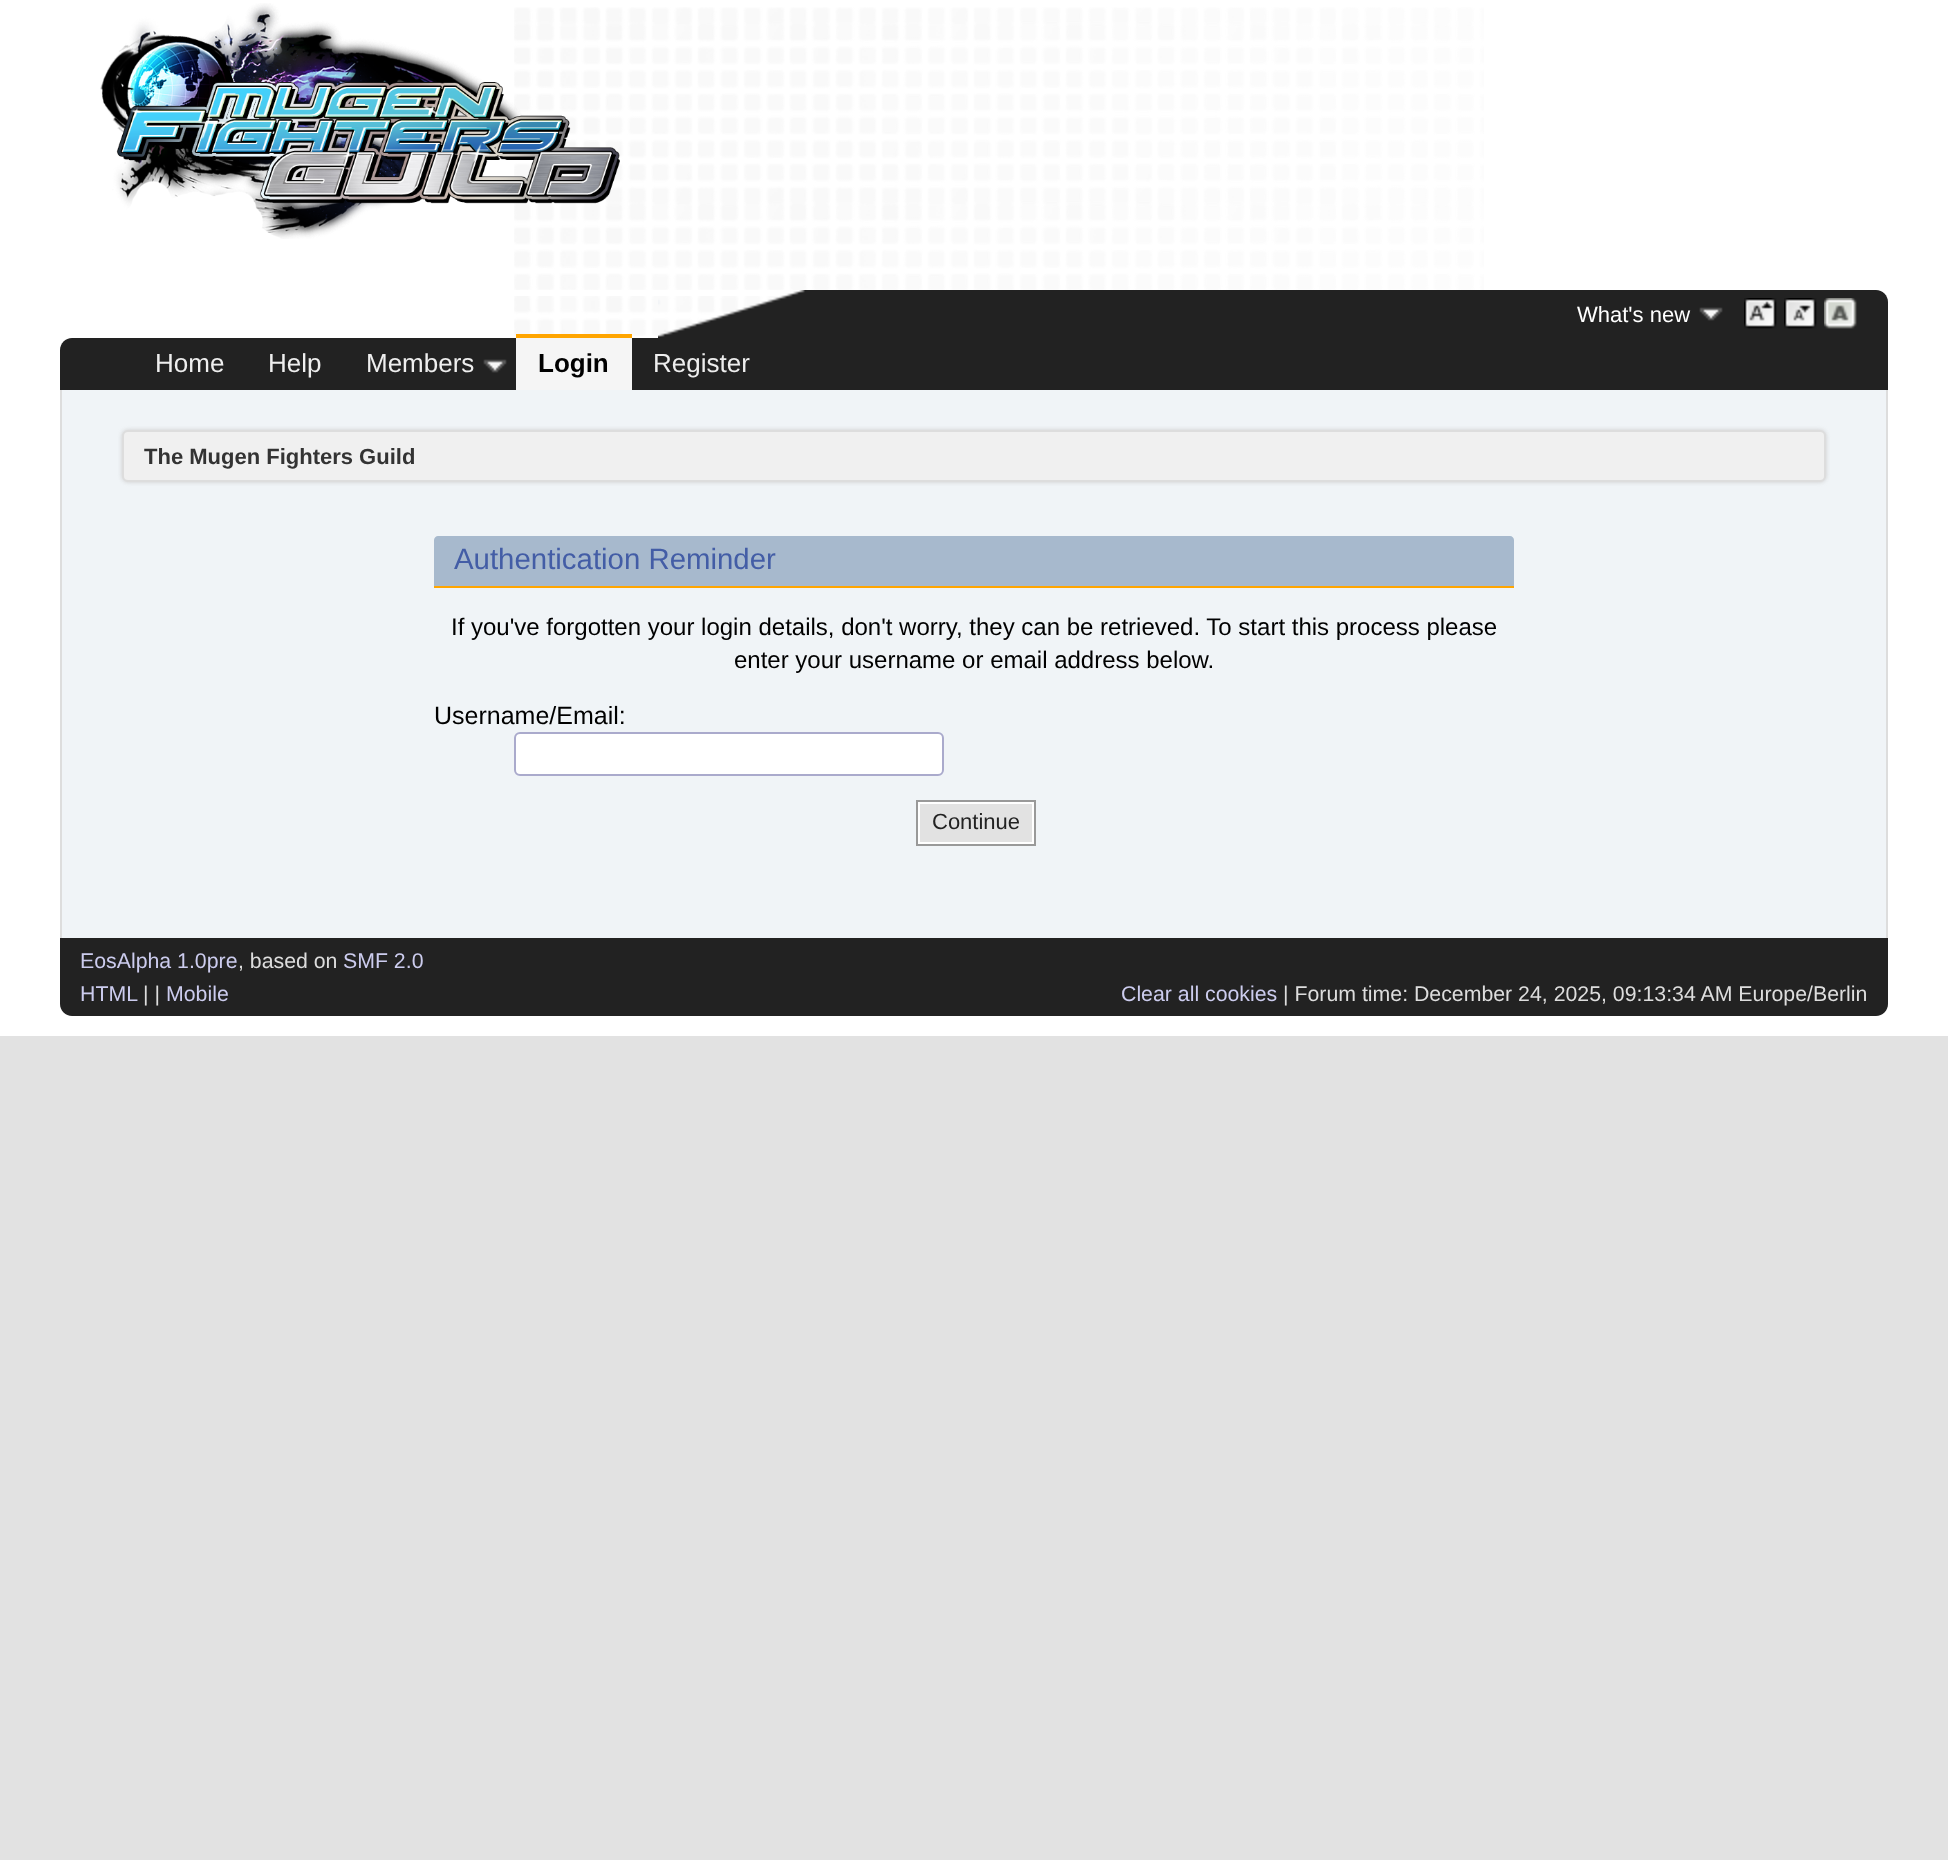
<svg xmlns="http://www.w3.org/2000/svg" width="1948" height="1860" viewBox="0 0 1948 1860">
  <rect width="100%" height="100%" fill="#e2e2e2"/>
  <path d="M0 0h1948v1036H0z" fill="#fff"/>
  <image x="514" y="7" width="970" height="283" href="img/1.png"/>
  <image x="100" y="3" width="520" height="236" href="img/2.png"/>
  <image x="514" y="296" width="279" height="40" href="img/3.png"/>
  <image x="658" y="290" width="200" height="48" href="img/4.png"/>
  <path d="M858 290H1876C1882.5 290 1888 295.5 1888 302V338H858Z" fill="#222"/>
  <image x="1699" y="307" width="24" height="14" href="img/5.png"/>
  <image x="1744" y="298" width="33" height="31" href="img/6.png"/>
  <image x="1784" y="298" width="33" height="31" href="img/7.png"/>
  <image x="1824" y="298" width="33" height="31" href="img/8.png"/>
  <path d="M72 338H1888V390H60V350C60 343.5 65.5 338 72 338Z" fill="#222"/>
  <image x="483" y="359" width="24" height="14" href="img/5.png"/>
  <path d="M516 338h116v52H516z" fill="#f5f5f5"/>
  <path d="M516 334h116v4H516z" fill="#ffa500"/>
  <path d="M62 390h1824v548H62z" fill="#f0f4f7"/>
  <path d="M1886 390h2v548H1886z" fill="#ddd"/>
  <path d="M60 390h2v548H60z" fill="#ddd"/>
  <rect x="122" y="430" width="1704" height="52" rx="6" fill="#ccc" filter="blur(2px)"/>
  <rect x="123" y="431" width="1702" height="50" rx="5" fill="#f0f0f0" stroke="#ddd" stroke-width="2"/>
  <path d="M438 536H1510C1512 536 1514 538 1514 540V588H434V540C434 538 436 536 438 536Z" fill="#a7b9cd"/>
  <path d="M434 586h1080v2H434z" fill="#ffa500"/>
  <rect x="515" y="733" width="428" height="42" rx="5" fill="#fff" stroke="#aac" stroke-width="2"/>
  <path d="M919 803h114v40H919z" fill="#e2e2e2" stroke="#fff" stroke-width="2"/>
  <path d="M917 801h118v44H917z" fill="none" stroke="#999" stroke-width="2"/>
  <path d="M60 938H1888V1004C1888 1010.5 1882.5 1016 1876 1016H72C65.5 1016 60 1010.5 60 1004Z" fill="#222"/>
  <text x="1577" y="322" font-family="Liberation Sans" font-size="22" fill="#fff">What's new</text>
  <g font-family="Liberation Sans" font-size="26" fill="#eee">
    <text x="155" y="372">Home</text>
    <text x="268" y="372">Help</text>
    <text x="366" y="372">Members</text>
  </g>
  <text x="538" y="372" font-family="Liberation Sans" font-size="26" font-weight="bold" fill="#000">Login</text>
  <text x="653" y="372" font-family="Liberation Sans" font-size="26" fill="#eee">Register</text>
  <text x="144" y="464" font-family="Liberation Sans" font-size="22" font-weight="bold" fill="#333">The Mugen Fighters Guild</text>
  <text x="454" y="569" font-family="Liberation Sans" font-size="29.4" fill="#435da6">Authentication Reminder</text>
  <g font-family="Liberation Sans" font-size="24" fill="#000">
    <text x="451" y="635">If you've forgotten your login details, don't worry, they can be retrieved. To start this process please</text>
    <text x="734" y="668">enter your username or email address below.</text>
  </g>
  <text x="434" y="724" font-family="Liberation Sans" font-size="25" fill="#000">Username/Email:</text>
  <text x="932" y="829" font-family="Liberation Sans" font-size="22" fill="#222">Continue</text>
  <text x="80" y="968" font-family="Liberation Sans" font-size="21.3" fill="#cce">EosAlpha 1.0pre</text>
  <text x="238" y="968" font-family="Liberation Sans" font-size="21.3" fill="#ddd">, based on</text>
  <g font-family="Liberation Sans" font-size="21.3" fill="#cce">
    <text x="343" y="968">SMF 2.0</text>
    <text x="80" y="1001">HTML</text>
  </g>
  <text x="143" y="1001" font-family="Liberation Sans" font-size="21.3" fill="#ddd">| |</text>
  <g font-family="Liberation Sans" font-size="21.3" fill="#cce">
    <text x="166" y="1001">Mobile</text>
    <text x="1121" y="1001">Clear all cookies</text>
  </g>
  <text x="1283" y="1001" font-family="Liberation Sans" font-size="21.3" fill="#ddd">| Forum time: December 24, 2025, 09:13:34 AM Europe/Berlin</text>
</svg>
